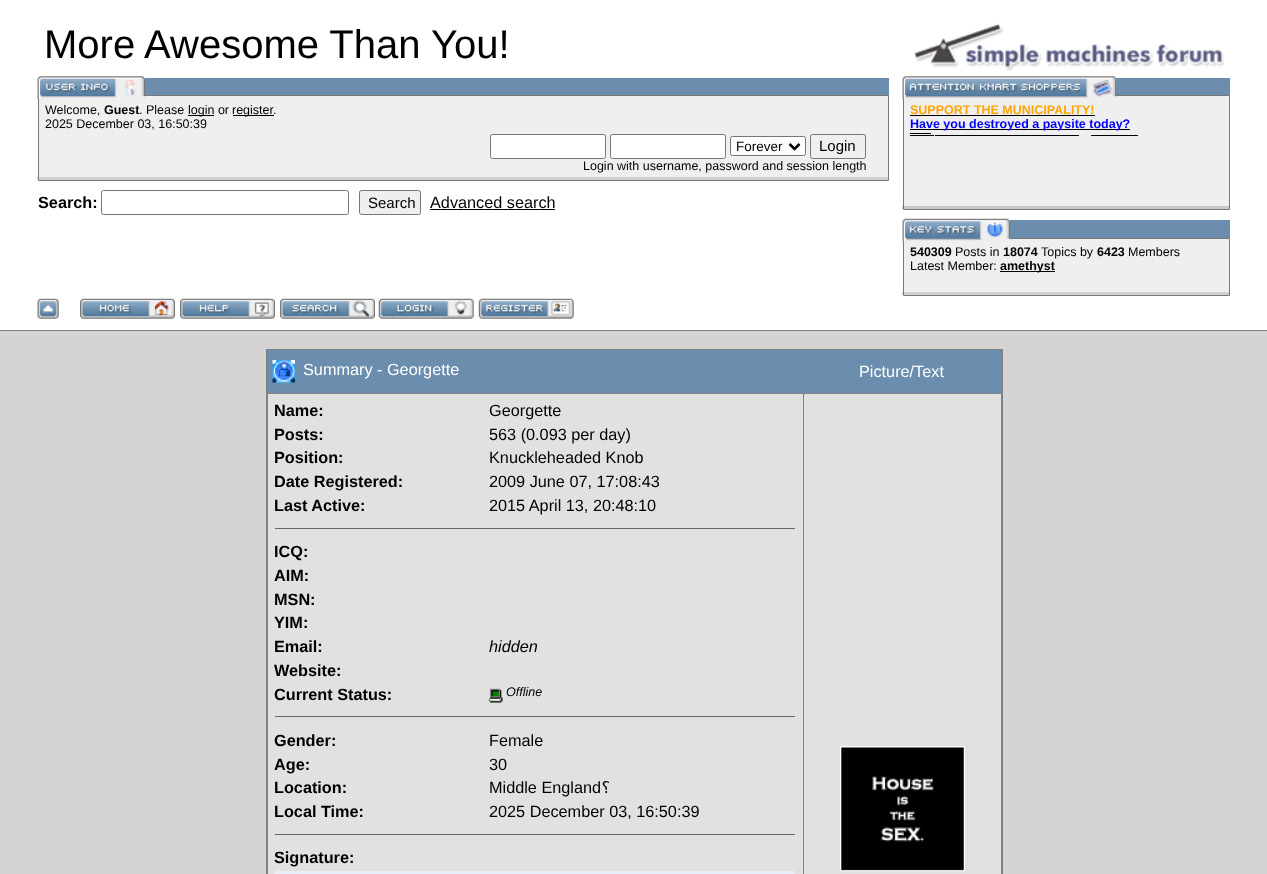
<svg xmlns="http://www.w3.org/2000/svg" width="1267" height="874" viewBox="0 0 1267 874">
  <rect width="100%" height="100%" fill="#fff"/>
  <path d="M0 330h1267v1H0z" fill="#808080"/>
  <image x="914" y="23" width="310" height="48" href="img/1.png"/>
  <path d="M145 78h744v17H145z" fill="#6b8eae"/>
  <path d="M39 96h849v81H39z" fill="#efefef"/>
  <path d="M37 177h852v3H37z" fill="#cfcfcf"/>
  <path d="M38.5 95.5h850v85H38.5z" fill="none" stroke="#7a7777"/>
  <image x="37" y="76" width="108" height="23" href="img/2.png"/>
  <path d="M188 115h26v1H188z" fill="#000"/>
  <path d="M233 115h41v1H233z" fill="#000"/>
  <rect x="490.5" y="134.5" width="115" height="24" rx="2" fill="#fff" stroke="#767676"/>
  <rect x="610.5" y="134.5" width="115" height="24" rx="2" fill="#fff" stroke="#767676"/>
  <rect x="730.5" y="136.5" width="75" height="19" rx="2" fill="#fff" stroke="#767676"/>
  <path d="M789.5 144L794.5 149L799.5 144" fill="none" stroke="#000" stroke-width="2.5"/>
  <rect x="810.5" y="134.5" width="55" height="24" rx="2" fill="none" stroke="#767676"/>
  <rect x="101.5" y="190.5" width="247" height="24" rx="2" fill="none" stroke="#767676"/>
  <rect x="359.5" y="190.5" width="61" height="24" rx="2" fill="#efefef" stroke="#767676"/>
  <path d="M430 209h125v1H430z" fill="#000"/>
  <path d="M1116 78h114v17H1116z" fill="#6b8eae"/>
  <path d="M904 96h325v110H904z" fill="#efefef"/>
  <path d="M902 206h328v3H902z" fill="#c9c9c9"/>
  <path d="M903.5 95.5h326v114H903.5z" fill="none" stroke="#7a7777"/>
  <image x="902" y="76" width="215" height="23" href="img/3.png"/>
  <path d="M910 115h185v1H910z" fill="#000"/>
  <path d="M910 129h220v1H910z" fill="#000"/>
  <path d="M910 133h21v1H910z" fill="#000"/>
  <path d="M910 135h24v1H910z" fill="#000"/>
  <path d="M935 135h144v1H935z" fill="#000"/>
  <path d="M1091 135h47v1H1091z" fill="#000"/>
  <path d="M903 220h327v18H903z" fill="#6b8eae"/>
  <path d="M904 239h325v53H904z" fill="#efefef"/>
  <path d="M902 292h328v3H902z" fill="#cfcfcf"/>
  <path d="M903.5 238.5h326v57H903.5z" fill="none" stroke="#7a7777"/>
  <image x="902" y="218" width="108" height="24" href="img/4.png"/>
  <path d="M1000 271h55v1H1000z" fill="#000"/>
  <image x="37" y="298" width="22" height="21" href="img/5.png"/>
  <image x="80" y="298" width="95" height="21" href="img/6.png"/>
  <image x="180" y="298" width="95" height="21" href="img/7.png"/>
  <image x="280" y="298" width="95" height="21" href="img/8.png"/>
  <image x="378" y="298" width="96" height="21" href="img/9.png"/>
  <image x="478" y="298" width="96" height="21" href="img/10.png"/>
  <path d="M0 331h1267v543H0z" fill="#d4d4d4"/>
  <path d="M266 349h737v525H266z" fill="#828181"/>
  <path d="M268 350h733v43H268z" fill="#6b8eae"/>
  <image x="272" y="360" width="23" height="23" href="img/11.png"/>
  <path d="M268 394h535v480H268z" fill="#e1e1e1"/>
  <path d="M275 528h520v1H275z" fill="#666"/>
  <image x="488" y="688" width="15" height="15" href="img/12.png"/>
  <path d="M275 716h520v1H275z" fill="#666"/>
  <path d="M275 834h520v1H275z" fill="#666"/>
  <path d="M275 871h520v3H275z" fill="#e8edfa"/>
  <path d="M804 394h197v480H804z" fill="#e1e1e1"/>
  <image x="840" y="746" width="125" height="126" href="img/13.png"/>
  <text x="44" y="58" font-family="Liberation Sans" font-size="40" fill="#000">More Awesome Than You!</text>
  <text x="45" y="114" font-family="Liberation Sans" font-size="12.5" fill="#000">Welcome,</text>
  <text x="104" y="114" font-family="Liberation Sans" font-size="12.5" font-weight="bold" fill="#000">Guest</text>
  <g font-family="Liberation Sans" font-size="12.5" fill="#000">
    <text x="139" y="114">. Please</text>
    <text x="188" y="114">login or</text>
    <text x="232" y="114">register</text>
    <text x="273" y="114">.</text>
    <text x="45" y="128">2025 December 03, 16:50:39</text>
  </g>
  <text x="736" y="151" font-family="Liberation Sans" font-size="13.5" fill="#000">Forever</text>
  <text x="819" y="151" font-family="Liberation Sans" font-size="15" fill="#000">Login</text>
  <text x="583" y="170" font-family="Liberation Sans" font-size="12.5" fill="#000">Login with username, password and session length</text>
  <text x="38" y="208" font-family="Liberation Sans" font-size="16.25" font-weight="bold" fill="#000">Search:</text>
  <text x="368" y="208" font-family="Liberation Sans" font-size="15" fill="#000">Search</text>
  <text x="430" y="208" font-family="Liberation Sans" font-size="16.25" fill="#000">Advanced search</text>
  <text x="910" y="114" font-family="Liberation Sans" font-size="12.5" font-weight="bold" fill="#ffa500">SUPPORT THE MUNICIPALITY!</text>
  <text x="910" y="128" font-family="Liberation Sans" font-size="12.5" font-weight="bold" fill="#00f">Have you destroyed a paysite today?</text>
  <text x="910" y="256" font-family="Liberation Sans" font-size="12.5" font-weight="bold" fill="#000">540309</text>
  <text x="955" y="256" font-family="Liberation Sans" font-size="12.5" fill="#000">Posts in</text>
  <text x="1003" y="256" font-family="Liberation Sans" font-size="12.5" font-weight="bold" fill="#000">18074</text>
  <text x="1041" y="256" font-family="Liberation Sans" font-size="12.5" fill="#000">Topics by</text>
  <text x="1097" y="256" font-family="Liberation Sans" font-size="12.5" font-weight="bold" fill="#000">6423</text>
  <g font-family="Liberation Sans" font-size="12.5" fill="#000">
    <text x="1128" y="256">Members</text>
    <text x="910" y="270">Latest Member:</text>
  </g>
  <text x="1000" y="270" font-family="Liberation Sans" font-size="12.5" font-weight="bold" fill="#000">amethyst</text>
  <g font-family="Liberation Sans" font-size="16.25" fill="#fff">
    <text x="303" y="375">Summary - Georgette</text>
    <text x="859" y="377">Picture/Text</text>
  </g>
  <text x="274" y="416" font-family="Liberation Sans" font-size="16.25" font-weight="bold" fill="#000">Name:</text>
  <text x="489" y="416" font-family="Liberation Sans" font-size="16.25" fill="#000">Georgette</text>
  <text x="274" y="440" font-family="Liberation Sans" font-size="16.25" font-weight="bold" fill="#000">Posts:</text>
  <text x="489" y="440" font-family="Liberation Sans" font-size="16.25" fill="#000">563 (0.093 per day)</text>
  <text x="274" y="463" font-family="Liberation Sans" font-size="16.25" font-weight="bold" fill="#000">Position:</text>
  <text x="489" y="463" font-family="Liberation Sans" font-size="16.25" fill="#000">Knuckleheaded Knob</text>
  <text x="274" y="487" font-family="Liberation Sans" font-size="16.25" font-weight="bold" fill="#000">Date Registered:</text>
  <text x="489" y="487" font-family="Liberation Sans" font-size="16.25" fill="#000">2009 June 07, 17:08:43</text>
  <text x="274" y="511" font-family="Liberation Sans" font-size="16.25" font-weight="bold" fill="#000">Last Active:</text>
  <text x="489" y="511" font-family="Liberation Sans" font-size="16.25" fill="#000">2015 April 13, 20:48:10</text>
  <g font-family="Liberation Sans" font-size="16.25" font-weight="bold" fill="#000">
    <text x="274" y="557">ICQ:</text>
    <text x="274" y="581">AIM:</text>
    <text x="274" y="605">MSN:</text>
    <text x="274" y="628">YIM:</text>
    <text x="274" y="652">Email:</text>
  </g>
  <text x="489" y="652" font-family="Liberation Sans" font-size="16.25" font-style="italic" fill="#000">hidden</text>
  <g font-family="Liberation Sans" font-size="16.25" font-weight="bold" fill="#000">
    <text x="274" y="676">Website:</text>
    <text x="274" y="700">Current Status:</text>
  </g>
  <text x="506" y="696" font-family="Liberation Sans" font-size="12.5" font-style="italic" fill="#000">Offline</text>
  <text x="274" y="746" font-family="Liberation Sans" font-size="16.25" font-weight="bold" fill="#000">Gender:</text>
  <text x="489" y="746" font-family="Liberation Sans" font-size="16.25" fill="#000">Female</text>
  <text x="274" y="770" font-family="Liberation Sans" font-size="16.25" font-weight="bold" fill="#000">Age:</text>
  <text x="489" y="770" font-family="Liberation Sans" font-size="16.25" fill="#000">30</text>
  <text x="274" y="793" font-family="Liberation Sans" font-size="16.25" font-weight="bold" fill="#000">Location:</text>
  <text x="489" y="793" font-family="Liberation Sans" font-size="16.25" fill="#000">Middle England</text>
  <text x="610" y="793" font-family="DejaVu Sans" font-size="16.25" direction="rtl" fill="#000">؟</text>
  <text x="274" y="817" font-family="Liberation Sans" font-size="16.25" font-weight="bold" fill="#000">Local Time:</text>
  <text x="489" y="817" font-family="Liberation Sans" font-size="16.25" fill="#000">2025 December 03, 16:50:39</text>
  <text x="274" y="863" font-family="Liberation Sans" font-size="16.25" font-weight="bold" fill="#000">Signature:</text>
</svg>
